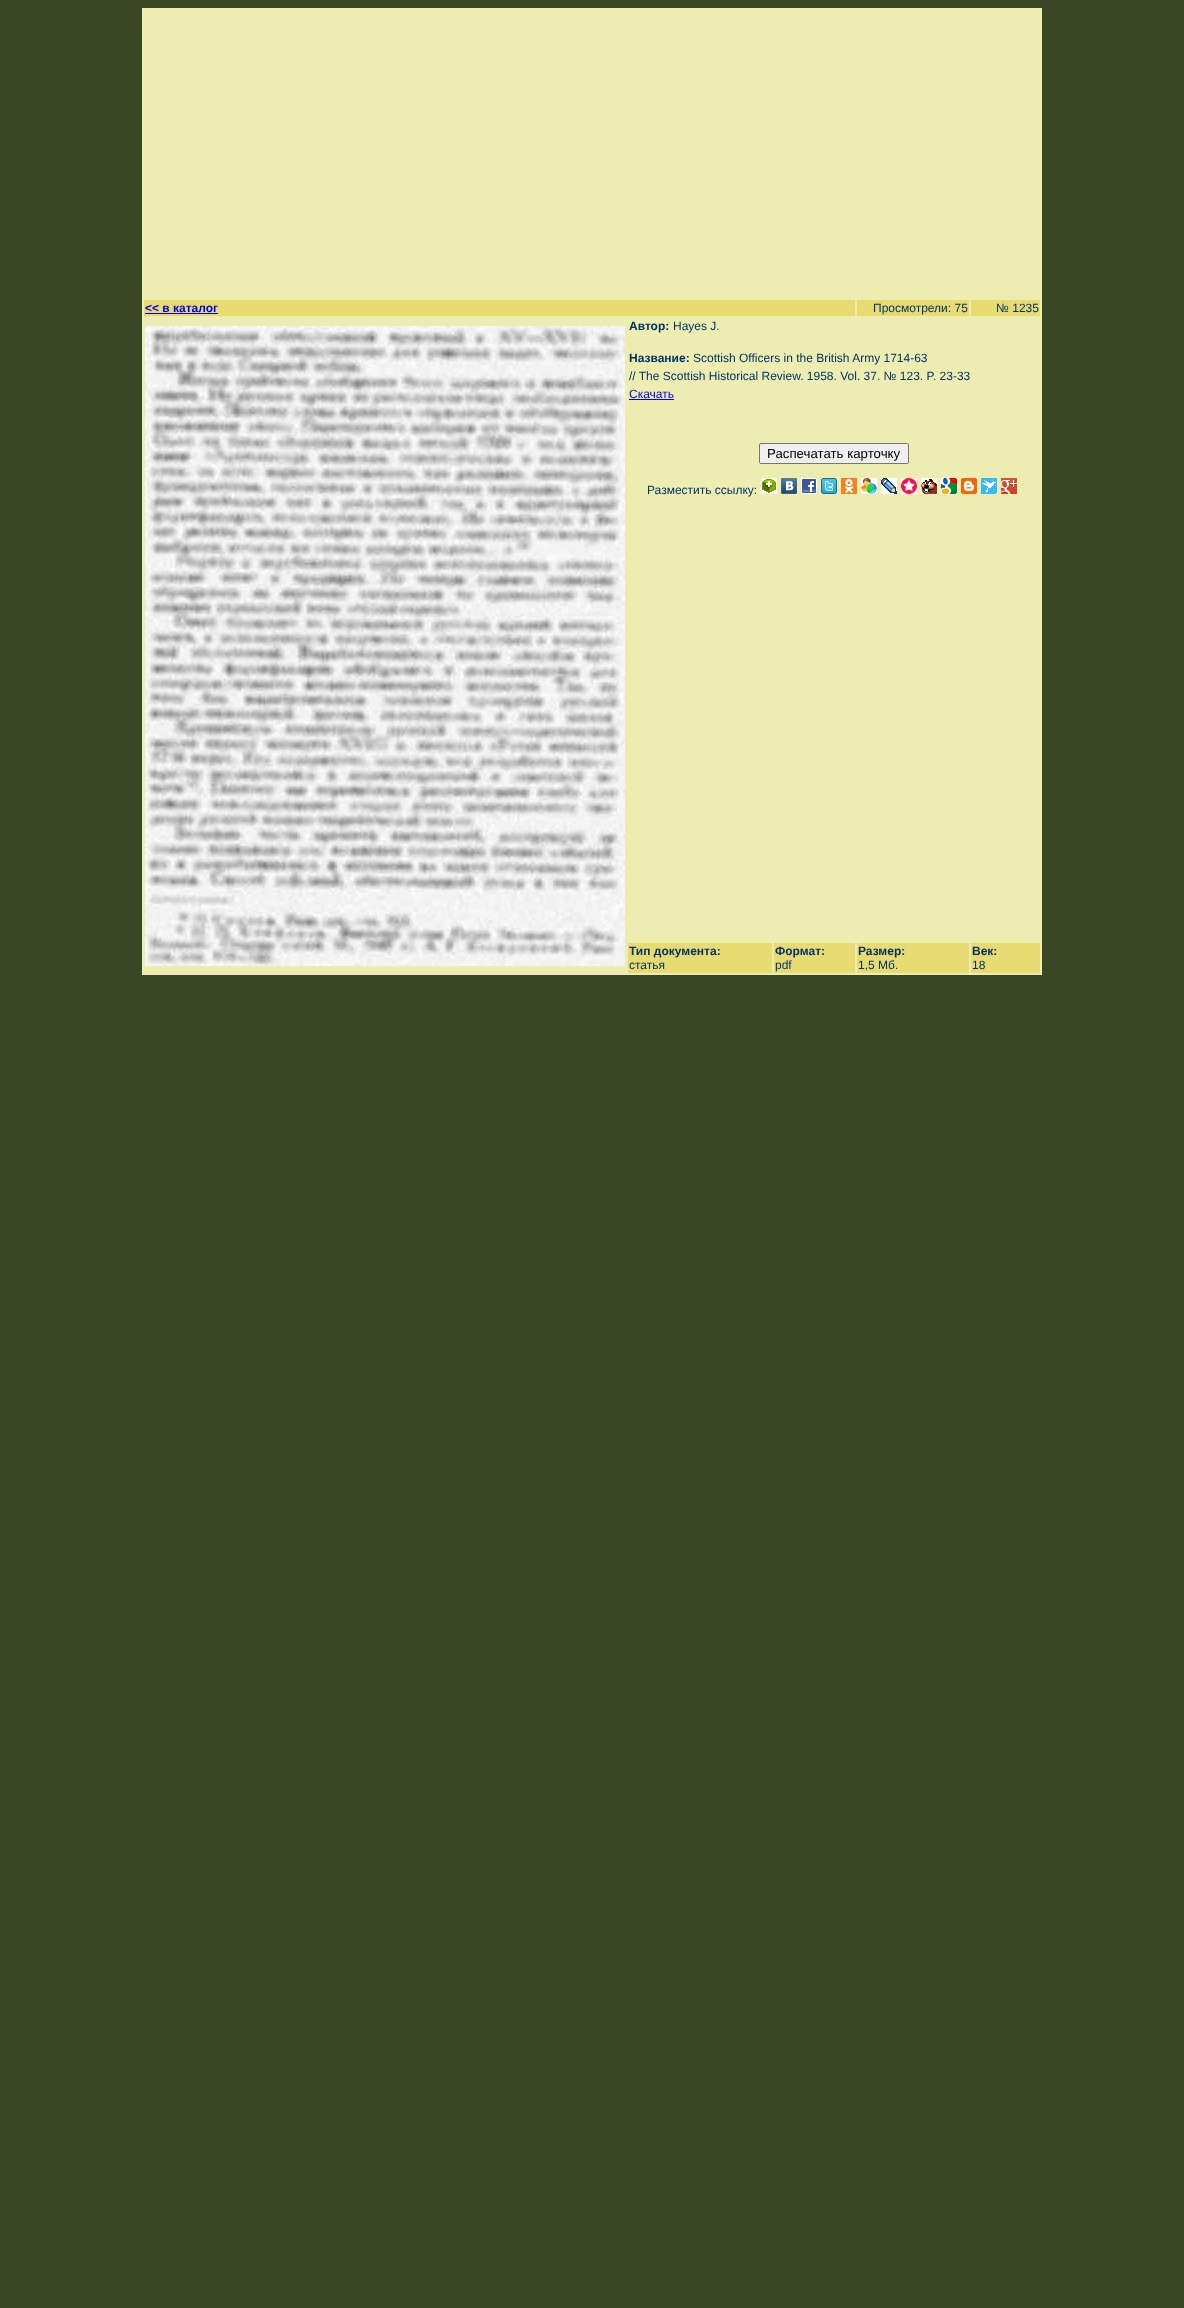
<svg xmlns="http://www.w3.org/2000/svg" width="1184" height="2308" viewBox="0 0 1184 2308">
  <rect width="100%" height="100%" fill="#3b4625"/>
  <path d="M142 8h900v967H142z" fill="#ededb2"/>
  <path d="M144 300h711v16H144z" fill="#e8db72"/>
  <path d="M145 313h73v1H145z" fill="#00e"/>
  <path d="M857 300h112v16H857z" fill="#e8db72"/>
  <path d="M971 300h69v16H971z" fill="#e8db72"/>
  <image x="145" y="326" width="480" height="640" href="img/1.png"/>
  <path d="M629 399h45v1H629z" fill="#00e"/>
  <rect x="759.5" y="443.5" width="149" height="20" rx="1.5" fill="#efefef" stroke="#767676"/>
  <image x="761" y="478" width="16" height="16" href="img/2.png"/>
  <image x="781" y="478" width="16" height="16" href="img/3.png"/>
  <image x="801" y="478" width="16" height="16" href="img/4.png"/>
  <image x="821" y="478" width="16" height="16" href="img/5.png"/>
  <image x="841" y="478" width="16" height="16" href="img/6.png"/>
  <image x="861" y="478" width="16" height="16" href="img/7.png"/>
  <image x="881" y="478" width="16" height="16" href="img/8.png"/>
  <image x="901" y="478" width="16" height="16" href="img/9.png"/>
  <image x="921" y="478" width="16" height="16" href="img/10.png"/>
  <image x="941" y="478" width="16" height="16" href="img/11.png"/>
  <image x="961" y="478" width="16" height="16" href="img/12.png"/>
  <image x="981" y="478" width="16" height="16" href="img/13.png"/>
  <image x="1001" y="478" width="16" height="16" href="img/14.png"/>
  <path d="M628 943h144v30H628z" fill="#e8db72"/>
  <path d="M774 943h81v30H774z" fill="#e8db72"/>
  <path d="M857 943h112v30H857z" fill="#e8db72"/>
  <path d="M971 943h69v30H971z" fill="#e8db72"/>
  <text x="145" y="312" font-family="Liberation Sans" font-size="12" font-weight="bold" fill="#00e">&lt;&lt; в каталог</text>
  <g font-family="Liberation Sans" font-size="12" fill="#036">
    <text x="873" y="312">Просмотрели: 75</text>
    <text x="996" y="312">№ 1235</text>
  </g>
  <text x="629" y="330" font-family="Liberation Sans" font-size="12" font-weight="bold" fill="#036">Автор:</text>
  <text x="673" y="330" font-family="Liberation Sans" font-size="12" fill="#036">Hayes J.</text>
  <text x="629" y="362" font-family="Liberation Sans" font-size="12" font-weight="bold" fill="#036">Название:</text>
  <g font-family="Liberation Sans" font-size="12" fill="#036">
    <text x="693" y="362">Scottish Officers in the British Army 1714-63</text>
    <text x="629" y="380">// The Scottish Historical Review. 1958. Vol. 37. № 123. P. 23-33</text>
  </g>
  <text x="629" y="398" font-family="Liberation Sans" font-size="12" fill="#00e">Скачать</text>
  <text x="767" y="458" font-family="Liberation Sans" font-size="13.25" fill="#000">Распечатать карточку</text>
  <text x="647" y="494" font-family="Liberation Sans" font-size="12" fill="#036">Разместить ссылку:</text>
  <text x="629" y="955" font-family="Liberation Sans" font-size="12" font-weight="bold" fill="#036">Тип документа:</text>
  <text x="629" y="969" font-family="Liberation Sans" font-size="12" fill="#036">статья</text>
  <text x="775" y="955" font-family="Liberation Sans" font-size="12" font-weight="bold" fill="#036">Формат:</text>
  <text x="775" y="969" font-family="Liberation Sans" font-size="12" fill="#036">pdf</text>
  <text x="858" y="955" font-family="Liberation Sans" font-size="12" font-weight="bold" fill="#036">Размер:</text>
  <text x="858" y="969" font-family="Liberation Sans" font-size="12" fill="#036">1,5 Мб.</text>
  <text x="972" y="955" font-family="Liberation Sans" font-size="12" font-weight="bold" fill="#036">Век:</text>
  <text x="972" y="969" font-family="Liberation Sans" font-size="12" fill="#036">18</text>
</svg>
